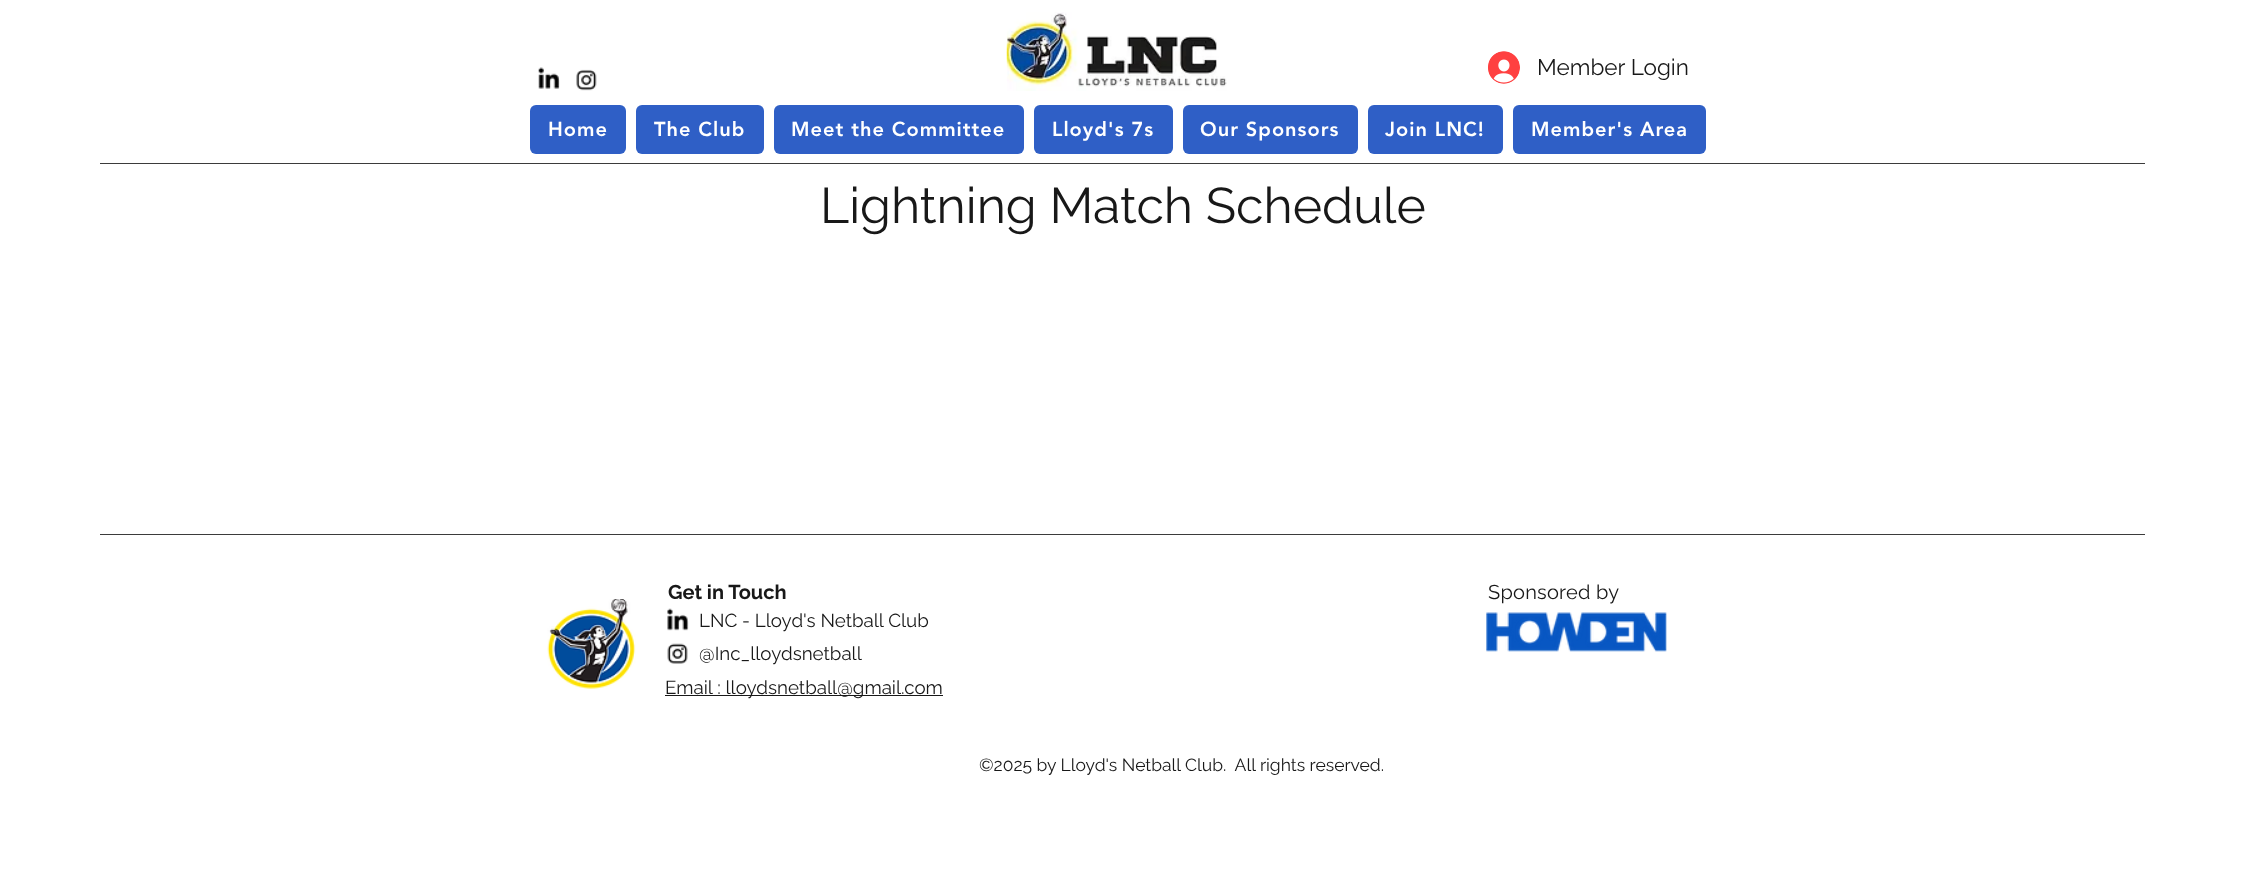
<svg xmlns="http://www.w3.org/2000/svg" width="2244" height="881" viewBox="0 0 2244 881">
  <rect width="100%" height="100%" fill="#fff"/>
  <image x="538" y="67" width="22" height="22" href="img/1.png"/>
  <image x="576" y="69" width="21" height="22" href="img/2.png"/>
  <image x="1006" y="12" width="221" height="79" href="img/3.png"/>
  <image x="1488" y="51" width="32" height="33" href="img/4.png"/>
  <rect x="530" y="105" width="96" height="49" rx="6" fill="#2f5fc6"/>
  <rect x="636" y="105" width="128" height="49" rx="6" fill="#2f5fc6"/>
  <rect x="774" y="105" width="250" height="49" rx="6" fill="#2f5fc6"/>
  <rect x="1034" y="105" width="139" height="49" rx="6" fill="#2f5fc6"/>
  <rect x="1183" y="105" width="175" height="49" rx="6" fill="#2f5fc6"/>
  <rect x="1368" y="105" width="135" height="49" rx="6" fill="#2f5fc6"/>
  <rect x="1513" y="105" width="193" height="49" rx="6" fill="#2f5fc6"/>
  <path d="M100 163h2045v1H100z" fill="#3b3b3b"/>
  <path d="M100 534h2045v1H100z" fill="#3b3b3b"/>
  <image x="547" y="599" width="89" height="90" href="img/5.png"/>
  <image x="667" y="608" width="22" height="23" href="img/6.png"/>
  <image x="1486" y="612" width="181" height="40" href="img/7.png"/>
  <image x="667" y="643" width="21" height="21" href="img/8.png"/>
  <path d="M665 695h278v1H665z" fill="#181818"/>
  <text x="1537" y="75" font-family="Raleway" font-size="22.5" fill="#181818">Member Login</text>
  <g font-family="'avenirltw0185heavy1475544'" font-size="20" font-weight="900" letter-spacing="1" fill="#fff">
    <text x="548" y="136">Home</text>
    <text x="654" y="136">The Club</text>
    <text x="791" y="136">Meet the Committee</text>
    <text x="1052" y="136">Lloyd's 7s</text>
    <text x="1200" y="136">Our Sponsors</text>
    <text x="1385" y="136">Join LNC!</text>
    <text x="1531" y="136">Member's Area</text>
  </g>
  <text x="820" y="223" font-family="Raleway" font-size="50" fill="#181818">Lightning Match Schedule</text>
  <text x="668" y="599" font-family="Raleway" font-size="20" font-weight="bold" fill="#181818">Get in Touch</text>
  <text x="1488" y="599" font-family="Raleway" font-size="20" letter-spacing="0.25" fill="#181818">Sponsored by</text>
  <g font-family="Raleway" font-size="18.75" fill="#181818">
    <text x="699" y="627">LNC - Lloyd's Netball Club</text>
    <text x="699" y="660">@Inc_lloydsnetball</text>
    <text x="665" y="694">Email : lloydsnetball@gmail.com</text>
  </g>
  <text x="979" y="771" font-family="Raleway" font-size="17.5" fill="#181818" xml:space="preserve">©2025 by Lloyd's Netball Club.  All rights reserved.</text>
</svg>
